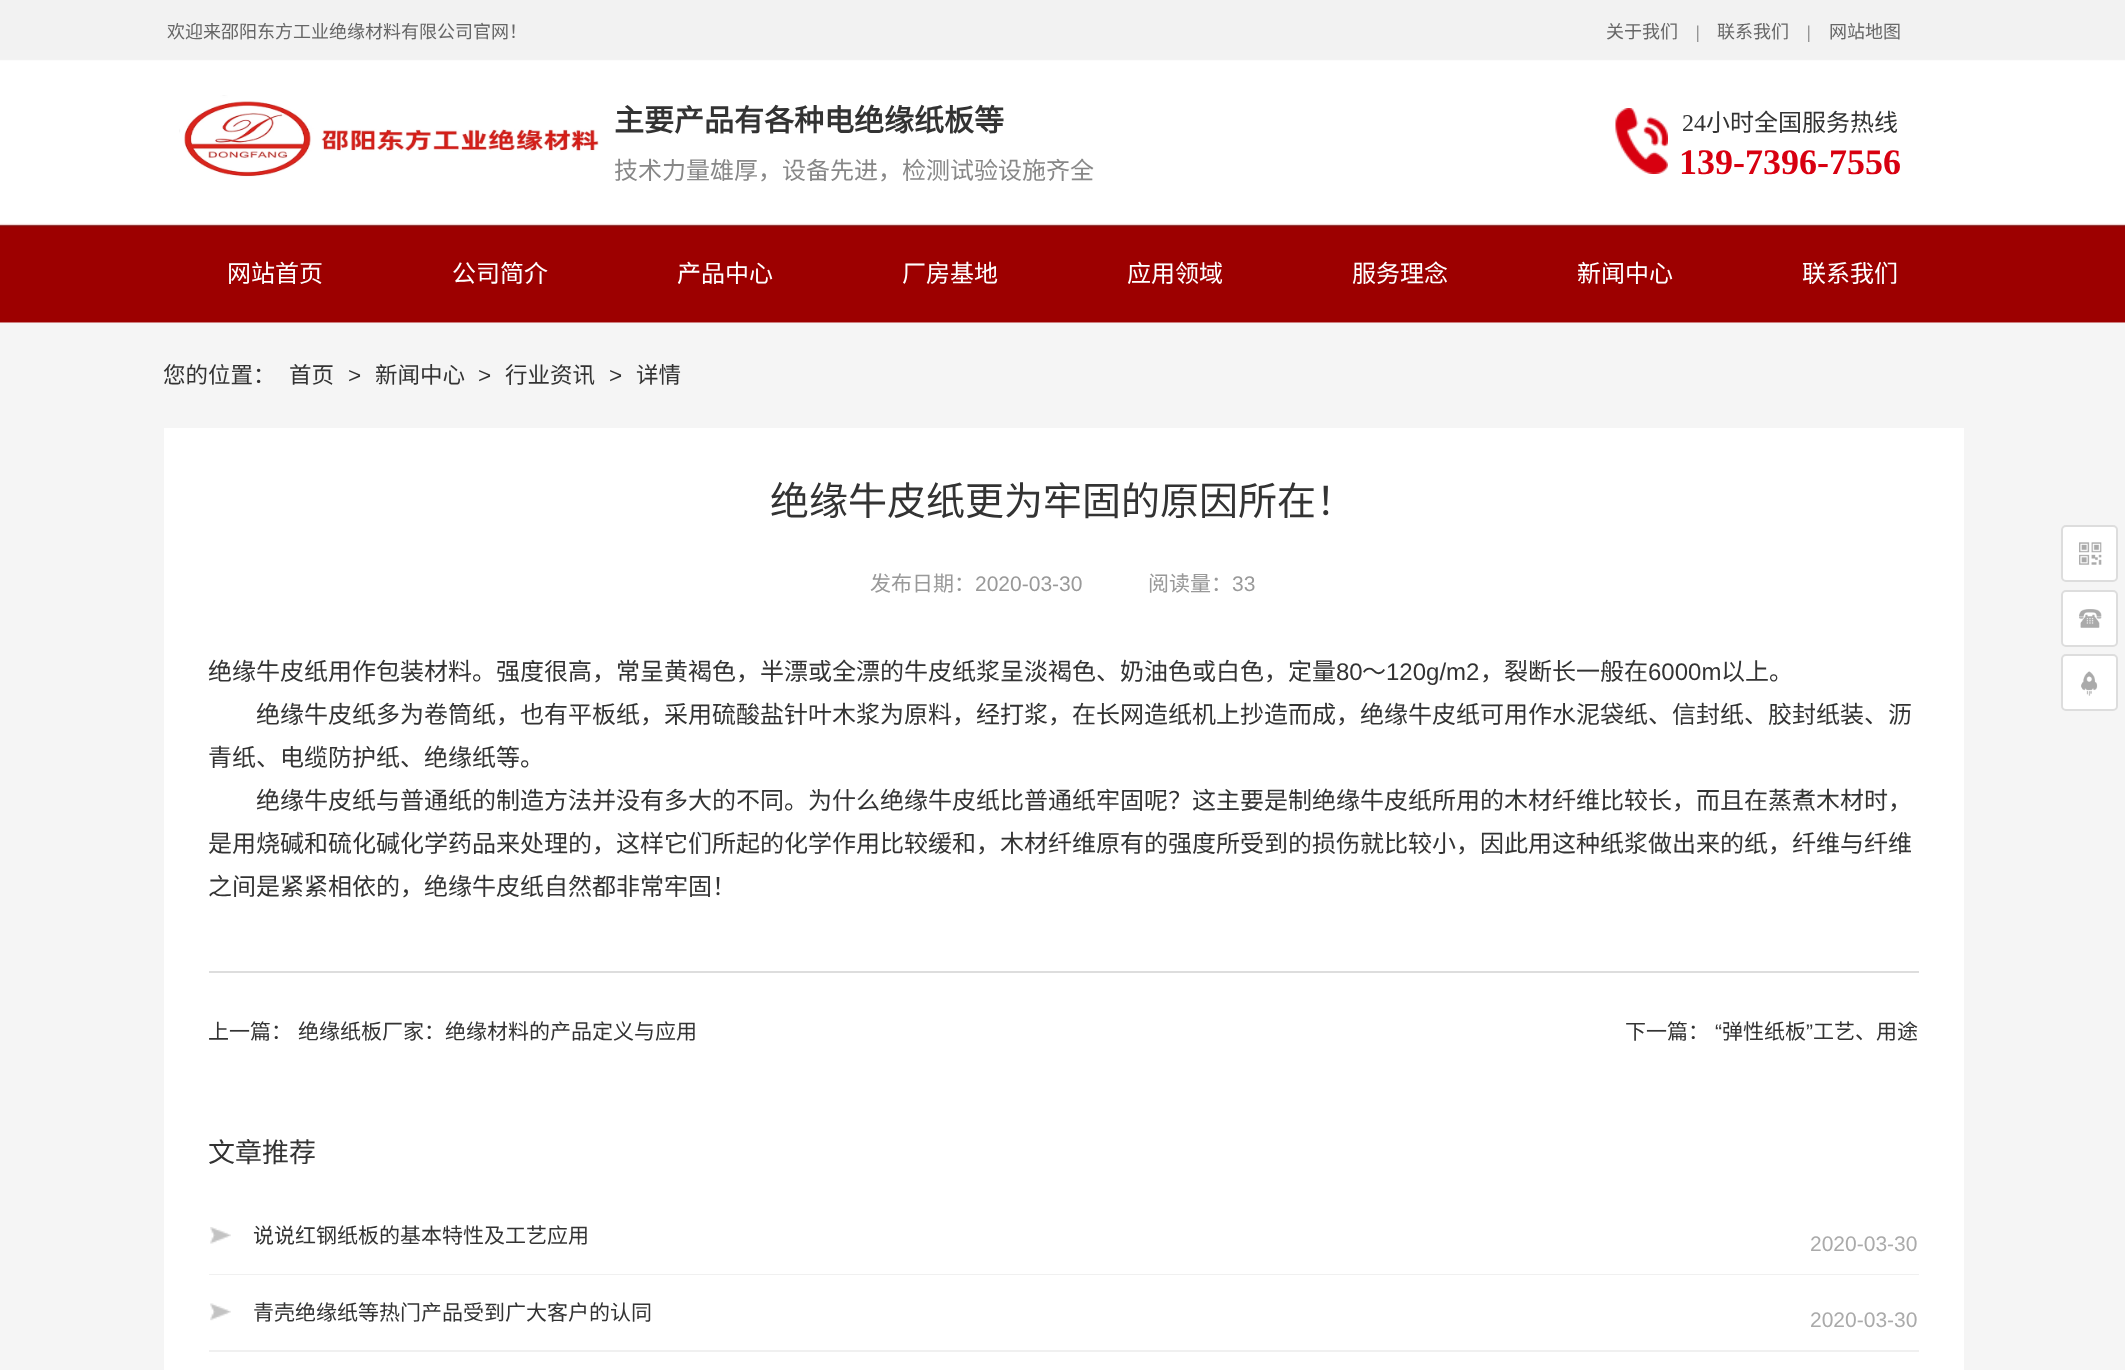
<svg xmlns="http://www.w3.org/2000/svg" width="2125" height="1370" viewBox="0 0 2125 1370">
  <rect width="100%" height="100%" fill="#f5f5f5"/>
  <path d="M0 322h2125v1H0z" fill="#fff"/>
  <image x="0" y="0" width="2125" height="323" href="img/1.png"/>
  <image x="179" y="95" width="420" height="82" href="img/2.png"/>
  <image x="1615" y="108" width="53" height="66" href="img/3.png"/>
  <path d="M164 428h1800v942H164z" fill="#fff"/>
  <path d="M209 971h1710v2H209z" fill="#ddd"/>
  <path d="M209 1274h1710v1H209z" fill="#f0f0f0"/>
  <image x="210" y="1227" width="21" height="17" href="img/4.png"/>
  <path d="M209 1350h1710v2H209z" fill="#f0f0f0"/>
  <image x="210" y="1303" width="21" height="18" href="img/5.png"/>
  <rect x="2062" y="526" width="55" height="55" rx="4" fill="#fff" stroke="#ddd" stroke-width="2"/>
  <image x="2079" y="542" width="23" height="23" href="img/6.png"/>
  <rect x="2062" y="591" width="55" height="55" rx="4" fill="#fff" stroke="#ddd" stroke-width="2"/>
  <image x="2079" y="609" width="23" height="19" href="img/7.png"/>
  <rect x="2062" y="655" width="55" height="55" rx="4" fill="#fff" stroke="#ddd" stroke-width="2"/>
  <image x="2081" y="671" width="17" height="25" href="img/8.png"/>
  <g font-family="Noto Sans CJK SC" font-size="18" fill="#666">
    <text x="167" y="38">欢迎来邵阳东方工业绝缘材料有限公司官网！</text>
    <text x="1606" y="38">关于我们</text>
  </g>
  <text x="1696" y="38" font-family="Liberation Serif" font-size="18" fill="#666">|</text>
  <text x="1717" y="38" font-family="Noto Sans CJK SC" font-size="18" fill="#666">联系我们</text>
  <text x="1807" y="38" font-family="Liberation Serif" font-size="18" fill="#666">|</text>
  <text x="1829" y="38" font-family="Noto Sans CJK SC" font-size="18" fill="#666">网站地图</text>
  <text x="614" y="131" font-family="Noto Sans CJK SC" font-size="30" font-weight="bold" fill="#333">主要产品有各种电绝缘纸板等</text>
  <text x="1682" y="131" font-family="Liberation Serif" font-size="24" fill="#333">24</text>
  <text x="1706" y="131" font-family="Noto Sans CJK SC" font-size="24" fill="#333">小时全国服务热线</text>
  <text x="614" y="179" font-family="Noto Sans CJK SC" font-size="24" fill="#888">技术力量雄厚，设备先进，检测试验设施齐全</text>
  <text x="1679" y="174" font-family="Liberation Serif" font-size="36" font-weight="bold" fill="#d80010">139-7396-7556</text>
  <g font-family="Noto Sans CJK SC" font-size="24" fill="#fff">
    <text x="227" y="282">网站首页</text>
    <text x="452" y="282">公司简介</text>
    <text x="677" y="282">产品中心</text>
    <text x="902" y="282">厂房基地</text>
    <text x="1127" y="282">应用领域</text>
    <text x="1352" y="282">服务理念</text>
    <text x="1577" y="282">新闻中心</text>
    <text x="1802" y="282">联系我们</text>
  </g>
  <g font-family="Noto Sans CJK SC" font-size="22.5" fill="#333">
    <text x="163" y="383">您的位置：</text>
    <text x="289" y="383">首页</text>
  </g>
  <text x="348" y="383" font-family="Liberation Sans" font-size="22.5" fill="#333">&gt;</text>
  <text x="375" y="383" font-family="Noto Sans CJK SC" font-size="22.5" fill="#333">新闻中心</text>
  <text x="478" y="383" font-family="Liberation Sans" font-size="22.5" fill="#333">&gt;</text>
  <text x="505" y="383" font-family="Noto Sans CJK SC" font-size="22.5" fill="#333">行业资讯</text>
  <text x="609" y="383" font-family="Liberation Sans" font-size="22.5" fill="#333">&gt;</text>
  <text x="636" y="383" font-family="Noto Sans CJK SC" font-size="22.5" fill="#333">详情</text>
  <text x="770" y="515" font-family="Noto Sans CJK SC" font-size="39" fill="#333">绝缘牛皮纸更为牢固的原因所在！</text>
  <text x="870" y="591" font-family="Noto Sans CJK SC" font-size="21" fill="#999">发布日期：</text>
  <text x="975" y="591" font-family="Liberation Sans" font-size="21" fill="#999">2020-03-30</text>
  <text x="1148" y="591" font-family="Noto Sans CJK SC" font-size="21" fill="#999">阅读量：</text>
  <text x="1232" y="591" font-family="Liberation Sans" font-size="21" fill="#999">33</text>
  <text x="208" y="680" font-family="Noto Sans CJK SC" font-size="24" fill="#333">绝缘牛皮纸用作包装材料。强度很高，常呈黄褐色，半漂或全漂的牛皮纸浆呈淡褐色、奶油色或白色，定量</text>
  <text x="1336" y="680" font-family="Liberation Sans" font-size="24" fill="#333">80</text>
  <text x="1362" y="680" font-family="Noto Sans CJK SC" font-size="24" fill="#333">～</text>
  <text x="1386" y="680" font-family="Liberation Sans" font-size="24" fill="#333">120g/m2</text>
  <text x="1480" y="680" font-family="Noto Sans CJK SC" font-size="24" fill="#333">，裂断长一般在</text>
  <text x="1648" y="680" font-family="Liberation Sans" font-size="24" fill="#333">6000m</text>
  <g font-family="Noto Sans CJK SC" font-size="24" fill="#333">
    <text x="1721" y="680">以上。</text>
    <text x="256" y="723">绝缘牛皮纸多为卷筒纸，也有平板纸，采用硫酸盐针叶木浆为原料，经打浆，在长网造纸机上抄造而成，绝缘牛皮纸可用作水泥袋纸、信封纸、胶封纸装、沥</text>
    <text x="208" y="766">青纸、电缆防护纸、绝缘纸等。</text>
    <text x="256" y="809">绝缘牛皮纸与普通纸的制造方法并没有多大的不同。为什么绝缘牛皮纸比普通纸牢固呢？这主要是制绝缘牛皮纸所用的木材纤维比较长，而且在蒸煮木材时，</text>
    <text x="208" y="852">是用烧碱和硫化碱化学药品来处理的，这样它们所起的化学作用比较缓和，木材纤维原有的强度所受到的损伤就比较小，因此用这种纸浆做出来的纸，纤维与纤维</text>
    <text x="208" y="895">之间是紧紧相依的，绝缘牛皮纸自然都非常牢固！</text>
  </g>
  <g font-family="Noto Sans CJK SC" font-size="21" fill="#333">
    <text x="208" y="1039">上一篇：</text>
    <text x="298" y="1039">绝缘纸板厂家：绝缘材料的产品定义与应用</text>
    <text x="1625" y="1039">下一篇：</text>
  </g>
  <text x="1715" y="1039" font-family="Liberation Sans" font-size="21" fill="#333">“</text>
  <text x="1722" y="1039" font-family="Noto Sans CJK SC" font-size="21" fill="#333">弹性纸板</text>
  <text x="1806" y="1039" font-family="Liberation Sans" font-size="21" fill="#333">”</text>
  <text x="1813" y="1039" font-family="Noto Sans CJK SC" font-size="21" fill="#333">工艺、用途</text>
  <text x="208" y="1162" font-family="Noto Sans CJK SC" font-size="27" fill="#333">文章推荐</text>
  <text x="253" y="1243" font-family="Noto Sans CJK SC" font-size="21" fill="#333">说说红钢纸板的基本特性及工艺应用</text>
  <text x="1810" y="1251" font-family="Liberation Sans" font-size="21" fill="#aaa">2020-03-30</text>
  <text x="253" y="1320" font-family="Noto Sans CJK SC" font-size="21" fill="#333">青壳绝缘纸等热门产品受到广大客户的认同</text>
  <text x="1810" y="1327" font-family="Liberation Sans" font-size="21" fill="#aaa">2020-03-30</text>
</svg>
